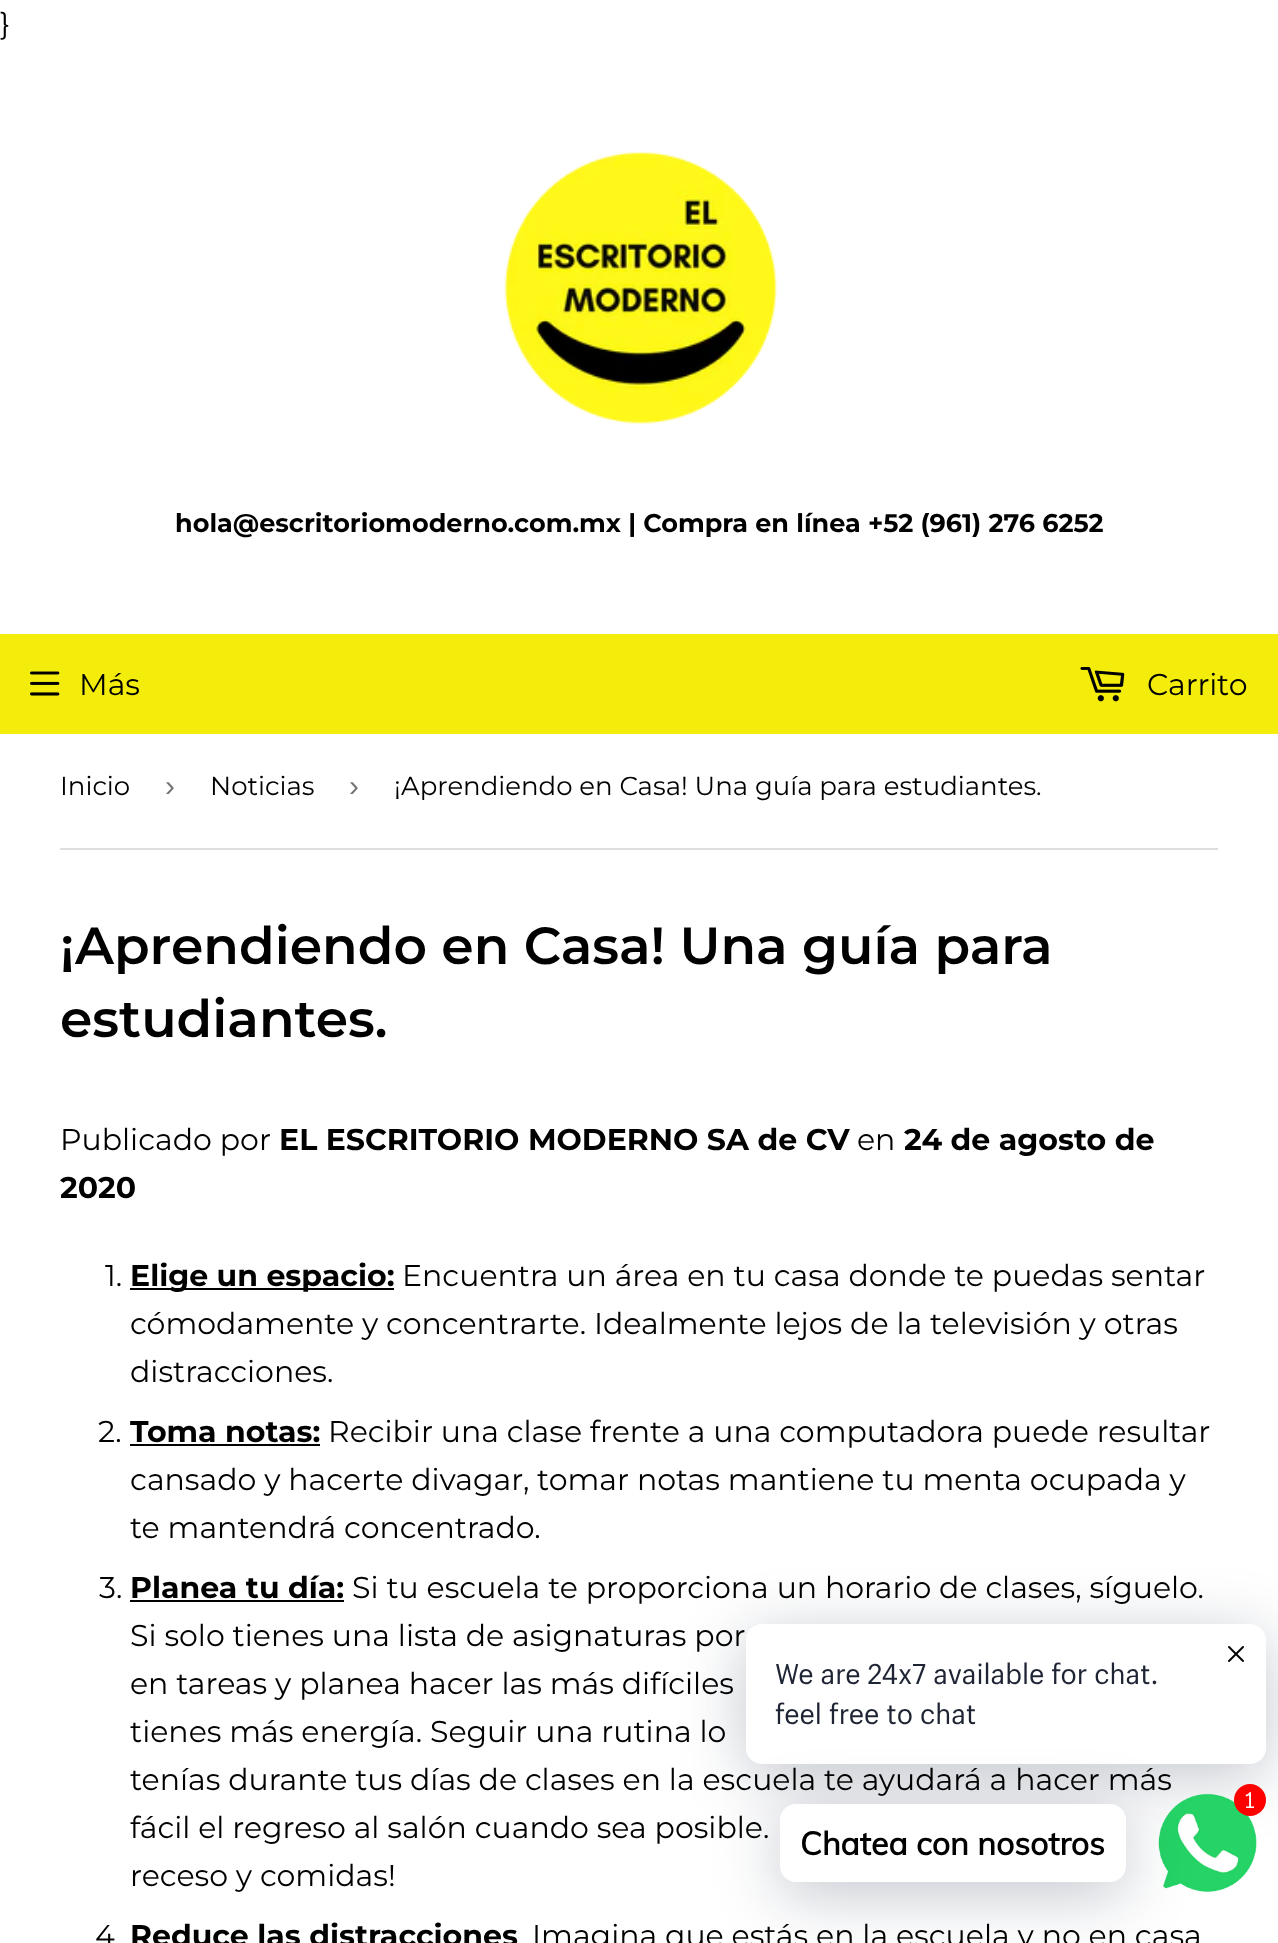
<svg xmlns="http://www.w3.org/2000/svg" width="1278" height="1943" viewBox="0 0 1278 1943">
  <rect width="100%" height="100%" fill="#fff"/>
  <image x="504" y="151" width="273" height="273" href="img/1.png"/>
  <path d="M0 634h1278v100H0z" fill="#f4ed0c"/>
  <image x="30" y="671" width="30" height="25" href="img/2.png"/>
  <image x="1080" y="667" width="45" height="35" href="img/3.png"/>
  <path d="M60 848h1158v2H60z" fill="#dedede"/>
  <path d="M130 1288h264v2H130z" fill="#000"/>
  <path d="M130 1444h190v2H130z" fill="#000"/>
  <path d="M130 1600h214v2H130z" fill="#000"/>
  <rect x="746" y="1636" width="520" height="140" rx="16" fill="#00122e3d" filter="blur(32px)"/>
  <rect x="746" y="1624" width="520" height="140" rx="16" fill="#fff"/>
  <image x="1228" y="1646" width="16" height="16" href="img/4.png"/>
  <text x="0" y="34" font-family="Montserrat" font-size="30" fill="#000">}</text>
  <text x="175" y="532" font-family="Montserrat" font-size="25.5" font-weight="bold" fill="#000">hola@escritoriomoderno.com.mx | Compra en línea +52 (961) 276 6252</text>
  <g font-family="Montserrat" font-size="30" fill="#000">
    <text x="79" y="695">Más</text>
    <text x="1147" y="695">Carrito</text>
  </g>
  <text x="60" y="795" font-family="Montserrat" font-size="26" fill="#000">Inicio</text>
  <text x="165" y="796" font-family="Liberation Sans" font-size="30" fill="#767676">›</text>
  <text x="210" y="795" font-family="Montserrat" font-size="26" fill="#000">Noticias</text>
  <text x="349" y="796" font-family="Liberation Sans" font-size="30" fill="#767676">›</text>
  <text x="394" y="795" font-family="Montserrat" font-size="26" fill="#000">¡Aprendiendo en Casa! Una guía para estudiantes.</text>
  <g font-family="Montserrat" font-size="52" font-weight="600" fill="#000">
    <text x="60" y="964">¡Aprendiendo en Casa! Una guía para</text>
    <text x="60" y="1037">estudiantes.</text>
  </g>
  <text x="60" y="1150" font-family="Montserrat" font-size="30" fill="#000">Publicado por</text>
  <text x="279" y="1150" font-family="Montserrat" font-size="30" font-weight="bold" fill="#000">EL ESCRITORIO MODERNO SA de CV</text>
  <text x="857" y="1150" font-family="Montserrat" font-size="30" fill="#000">en</text>
  <g font-family="Montserrat" font-size="30" font-weight="bold" fill="#000">
    <text x="904" y="1150">24 de agosto de</text>
    <text x="60" y="1198">2020</text>
  </g>
  <text x="105" y="1286" font-family="Montserrat" font-size="30" fill="#000">1.</text>
  <text x="130" y="1286" font-family="Montserrat" font-size="30" font-weight="bold" fill="#000">Elige un espacio:</text>
  <g font-family="Montserrat" font-size="30" fill="#000">
    <text x="402" y="1286">Encuentra un área en tu casa donde te puedas sentar</text>
    <text x="130" y="1334">cómodamente y concentrarte. Idealmente lejos de la televisión y otras</text>
    <text x="130" y="1382">distracciones.</text>
    <text x="98" y="1442">2.</text>
  </g>
  <text x="130" y="1442" font-family="Montserrat" font-size="30" font-weight="bold" fill="#000">Toma notas:</text>
  <g font-family="Montserrat" font-size="30" fill="#000">
    <text x="328" y="1442">Recibir una clase frente a una computadora puede resultar</text>
    <text x="130" y="1490">cansado y hacerte divagar, tomar notas mantiene tu menta ocupada y</text>
    <text x="130" y="1538">te mantendrá concentrado.</text>
    <text x="99" y="1598">3.</text>
  </g>
  <text x="130" y="1598" font-family="Montserrat" font-size="30" font-weight="bold" fill="#000">Planea tu día:</text>
  <g font-family="Montserrat" font-size="30" fill="#000">
    <text x="352" y="1598">Si tu escuela te proporciona un horario de clases, síguelo.</text>
    <text x="130" y="1646">Si solo tienes una lista de asignaturas por</text>
    <text x="130" y="1694">en tareas y planea hacer las más difíciles</text>
    <text x="130" y="1742">tienes más energía. Seguir una rutina lo</text>
    <text x="130" y="1790">tenías durante tus días de clases en la escuela te ayudará a hacer más</text>
    <text x="130" y="1838">fácil el regreso al salón cuando sea posible.</text>
    <text x="130" y="1886">receso y comidas!</text>
    <text x="95" y="1946">4</text>
  </g>
  <text x="130" y="1946" font-family="Montserrat" font-size="30" font-weight="bold" fill="#000">Reduce las distracciones</text>
  <text x="532" y="1946" font-family="Montserrat" font-size="30" fill="#000">Imagina que estás en la escuela y no en casa</text>
  <g font-family="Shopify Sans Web" font-size="28" fill="#1e2433">
    <text x="775" y="1684">We are 24x7 available for chat.</text>
    <text x="775" y="1724">feel free to chat</text>
  </g>
  <image x="1158" y="1793" width="99" height="99" href="img/5.png"/>
  <circle cx="1250" cy="1800" r="16" fill="#f00"/>
  <text x="1245" y="1808" font-family="Shopify Sans Web" font-size="22" fill="#fff">1</text>
  <rect x="780" y="1816" width="346" height="78" rx="16" fill="#00122e3d" filter="blur(32px)"/>
  <rect x="780" y="1804" width="346" height="78" rx="16" fill="#fff"/>
  <text x="800" y="1855" font-family="Muli" font-size="32" font-weight="bold" fill="#000">Chatea con nosotros</text>
</svg>
